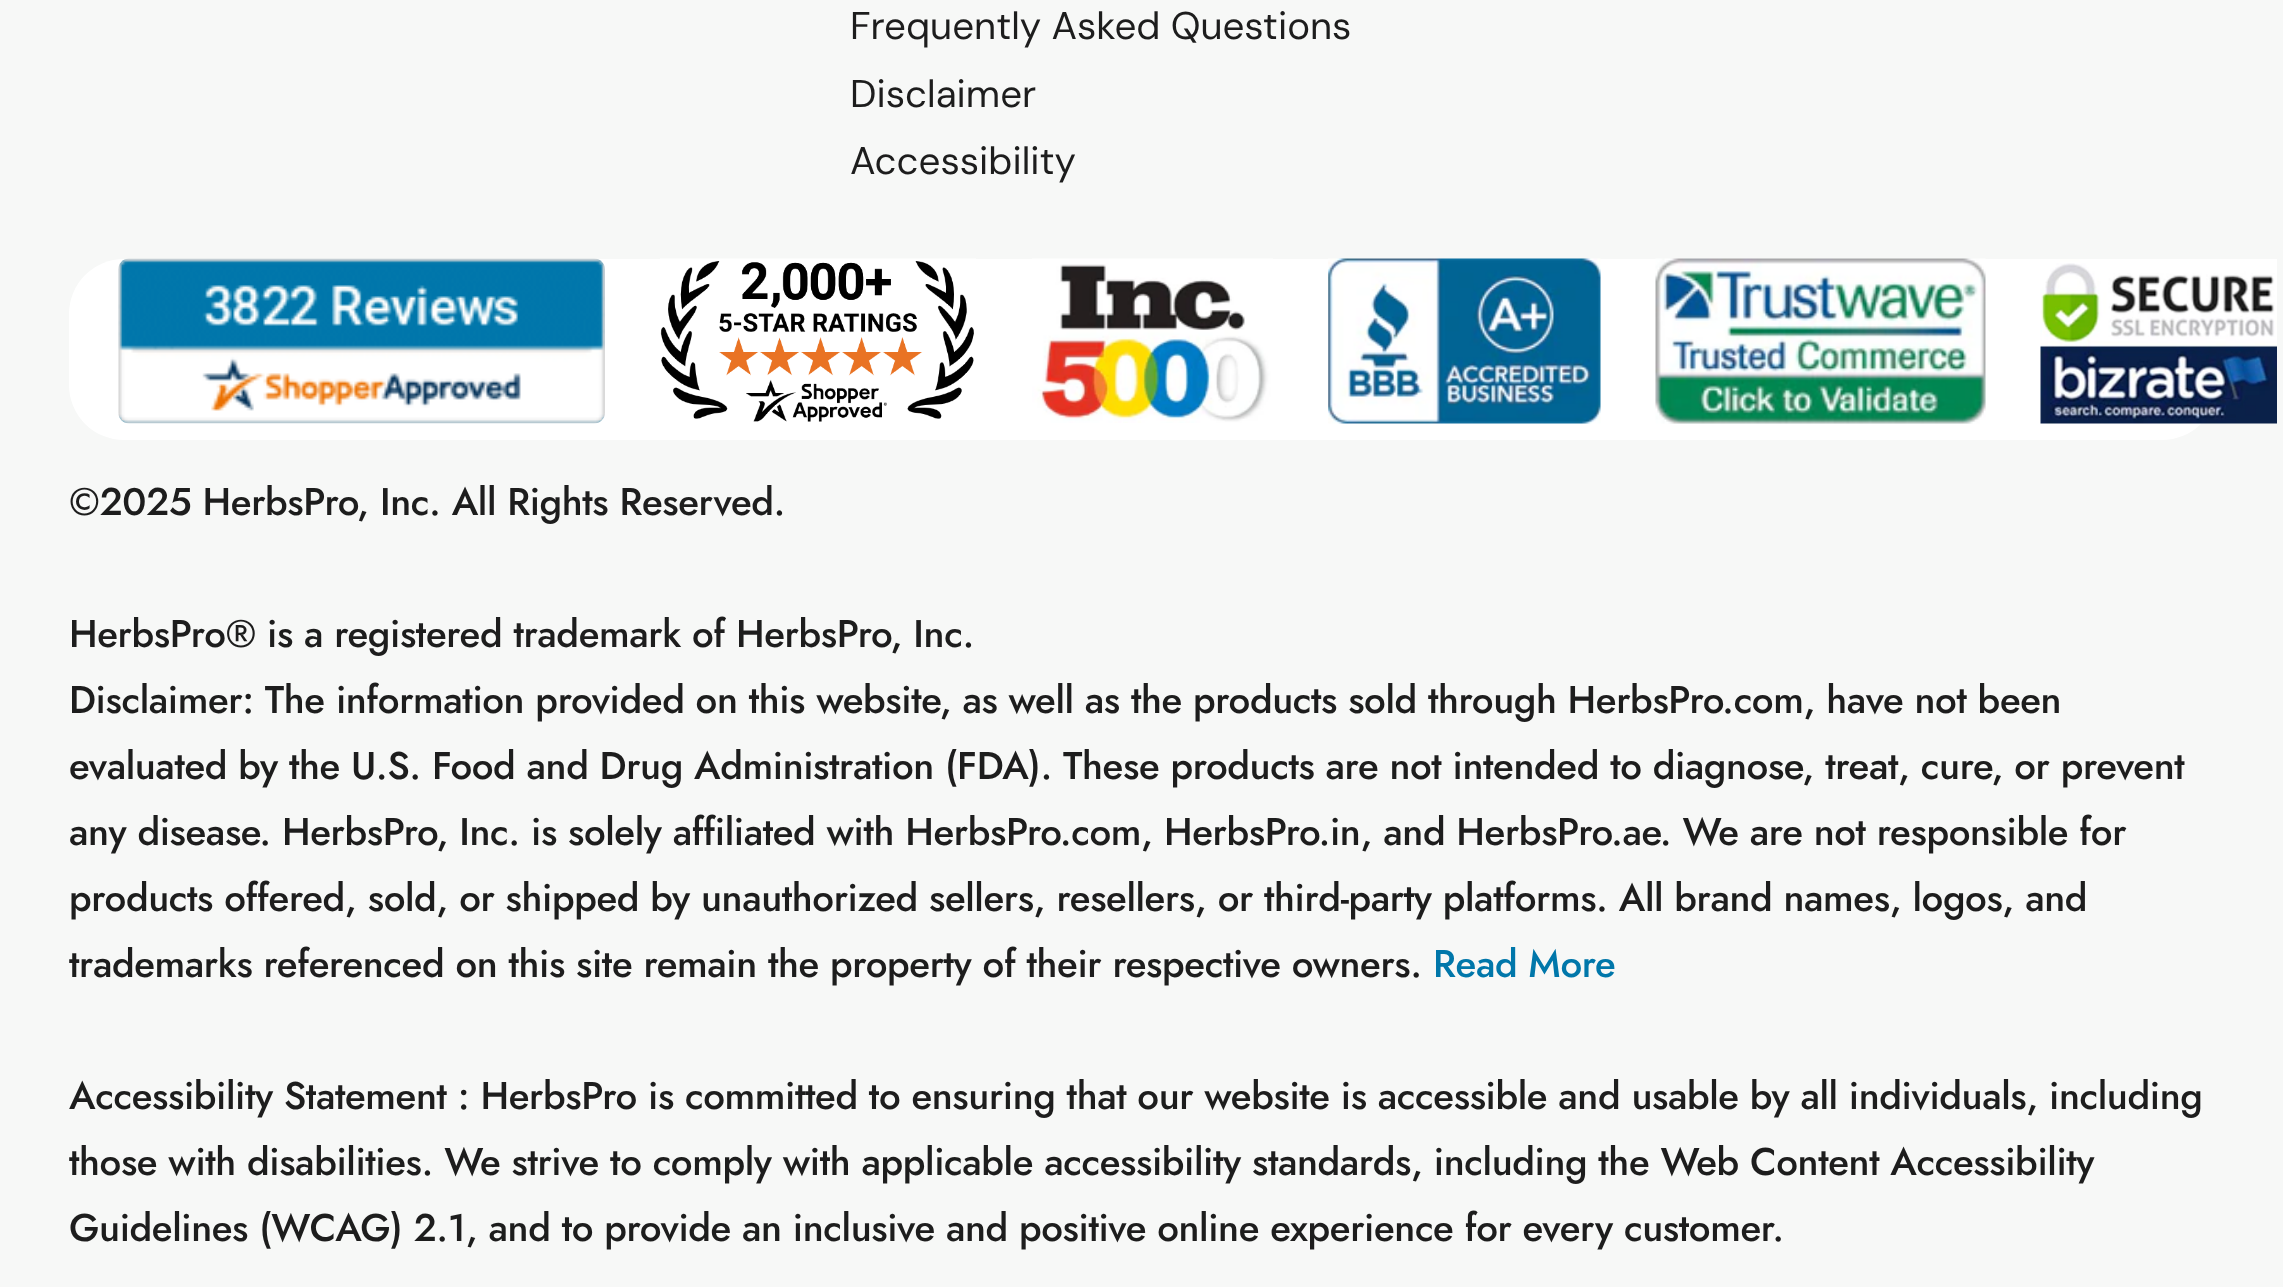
<svg xmlns="http://www.w3.org/2000/svg" width="2283" height="1287" viewBox="0 0 2283 1287">
  <rect width="100%" height="100%" fill="#f7f8f7"/>
  <rect x="69" y="259" width="2148" height="181" rx="55" fill="#fff"/>
  <image x="118" y="258" width="487" height="166" href="img/1.png"/>
  <image x="660" y="258" width="316" height="164" href="img/2.png"/>
  <image x="1032" y="258" width="241" height="165" href="img/3.png"/>
  <image x="1328" y="258" width="273" height="166" href="img/4.png"/>
  <image x="1655" y="258" width="331" height="166" href="img/5.png"/>
  <image x="2040" y="259" width="237" height="165" href="img/6.png"/>
  <g font-family="DM Sans" font-size="38.5" fill="#1d1d1d">
    <text x="850" y="39">Frequently Asked Questions</text>
    <text x="850" y="107">Disclaimer</text>
    <text x="850" y="174">Accessibility</text>
  </g>
  <g font-family="Jost" font-size="38.5" font-weight="500" letter-spacing="-0.39" fill="#1d1d1d">
    <text x="69" y="515">©2025 HerbsPro, Inc. All Rights Reserved.</text>
    <text x="69" y="647">HerbsPro® is a registered trademark of HerbsPro, Inc.</text>
    <text x="69" y="713">Disclaimer: The information provided on this website, as well as the products sold through HerbsPro.com, have not been</text>
    <text x="69" y="779">evaluated by the U.S. Food and Drug Administration (FDA). These products are not intended to diagnose, treat, cure, or prevent</text>
    <text x="69" y="845">any disease. HerbsPro, Inc. is solely affiliated with HerbsPro.com, HerbsPro.in, and HerbsPro.ae. We are not responsible for</text>
    <text x="69" y="911">products offered, sold, or shipped by unauthorized sellers, resellers, or third-party platforms. All brand names, logos, and</text>
    <text x="69" y="977">trademarks referenced on this site remain the property of their respective owners.</text>
  </g>
  <text x="1433" y="977" font-family="Jost" font-size="38.5" font-weight="500" letter-spacing="-0.39" fill="#07a">Read More</text>
  <g font-family="Jost" font-size="38.5" font-weight="500" letter-spacing="-0.39" fill="#1d1d1d">
    <text x="69" y="1109">Accessibility Statement : HerbsPro is committed to ensuring that our website is accessible and usable by all individuals, including</text>
    <text x="69" y="1175">those with disabilities. We strive to comply with applicable accessibility standards, including the Web Content Accessibility</text>
    <text x="69" y="1241">Guidelines (WCAG) 2.1, and to provide an inclusive and positive online experience for every customer.</text>
  </g>
</svg>
